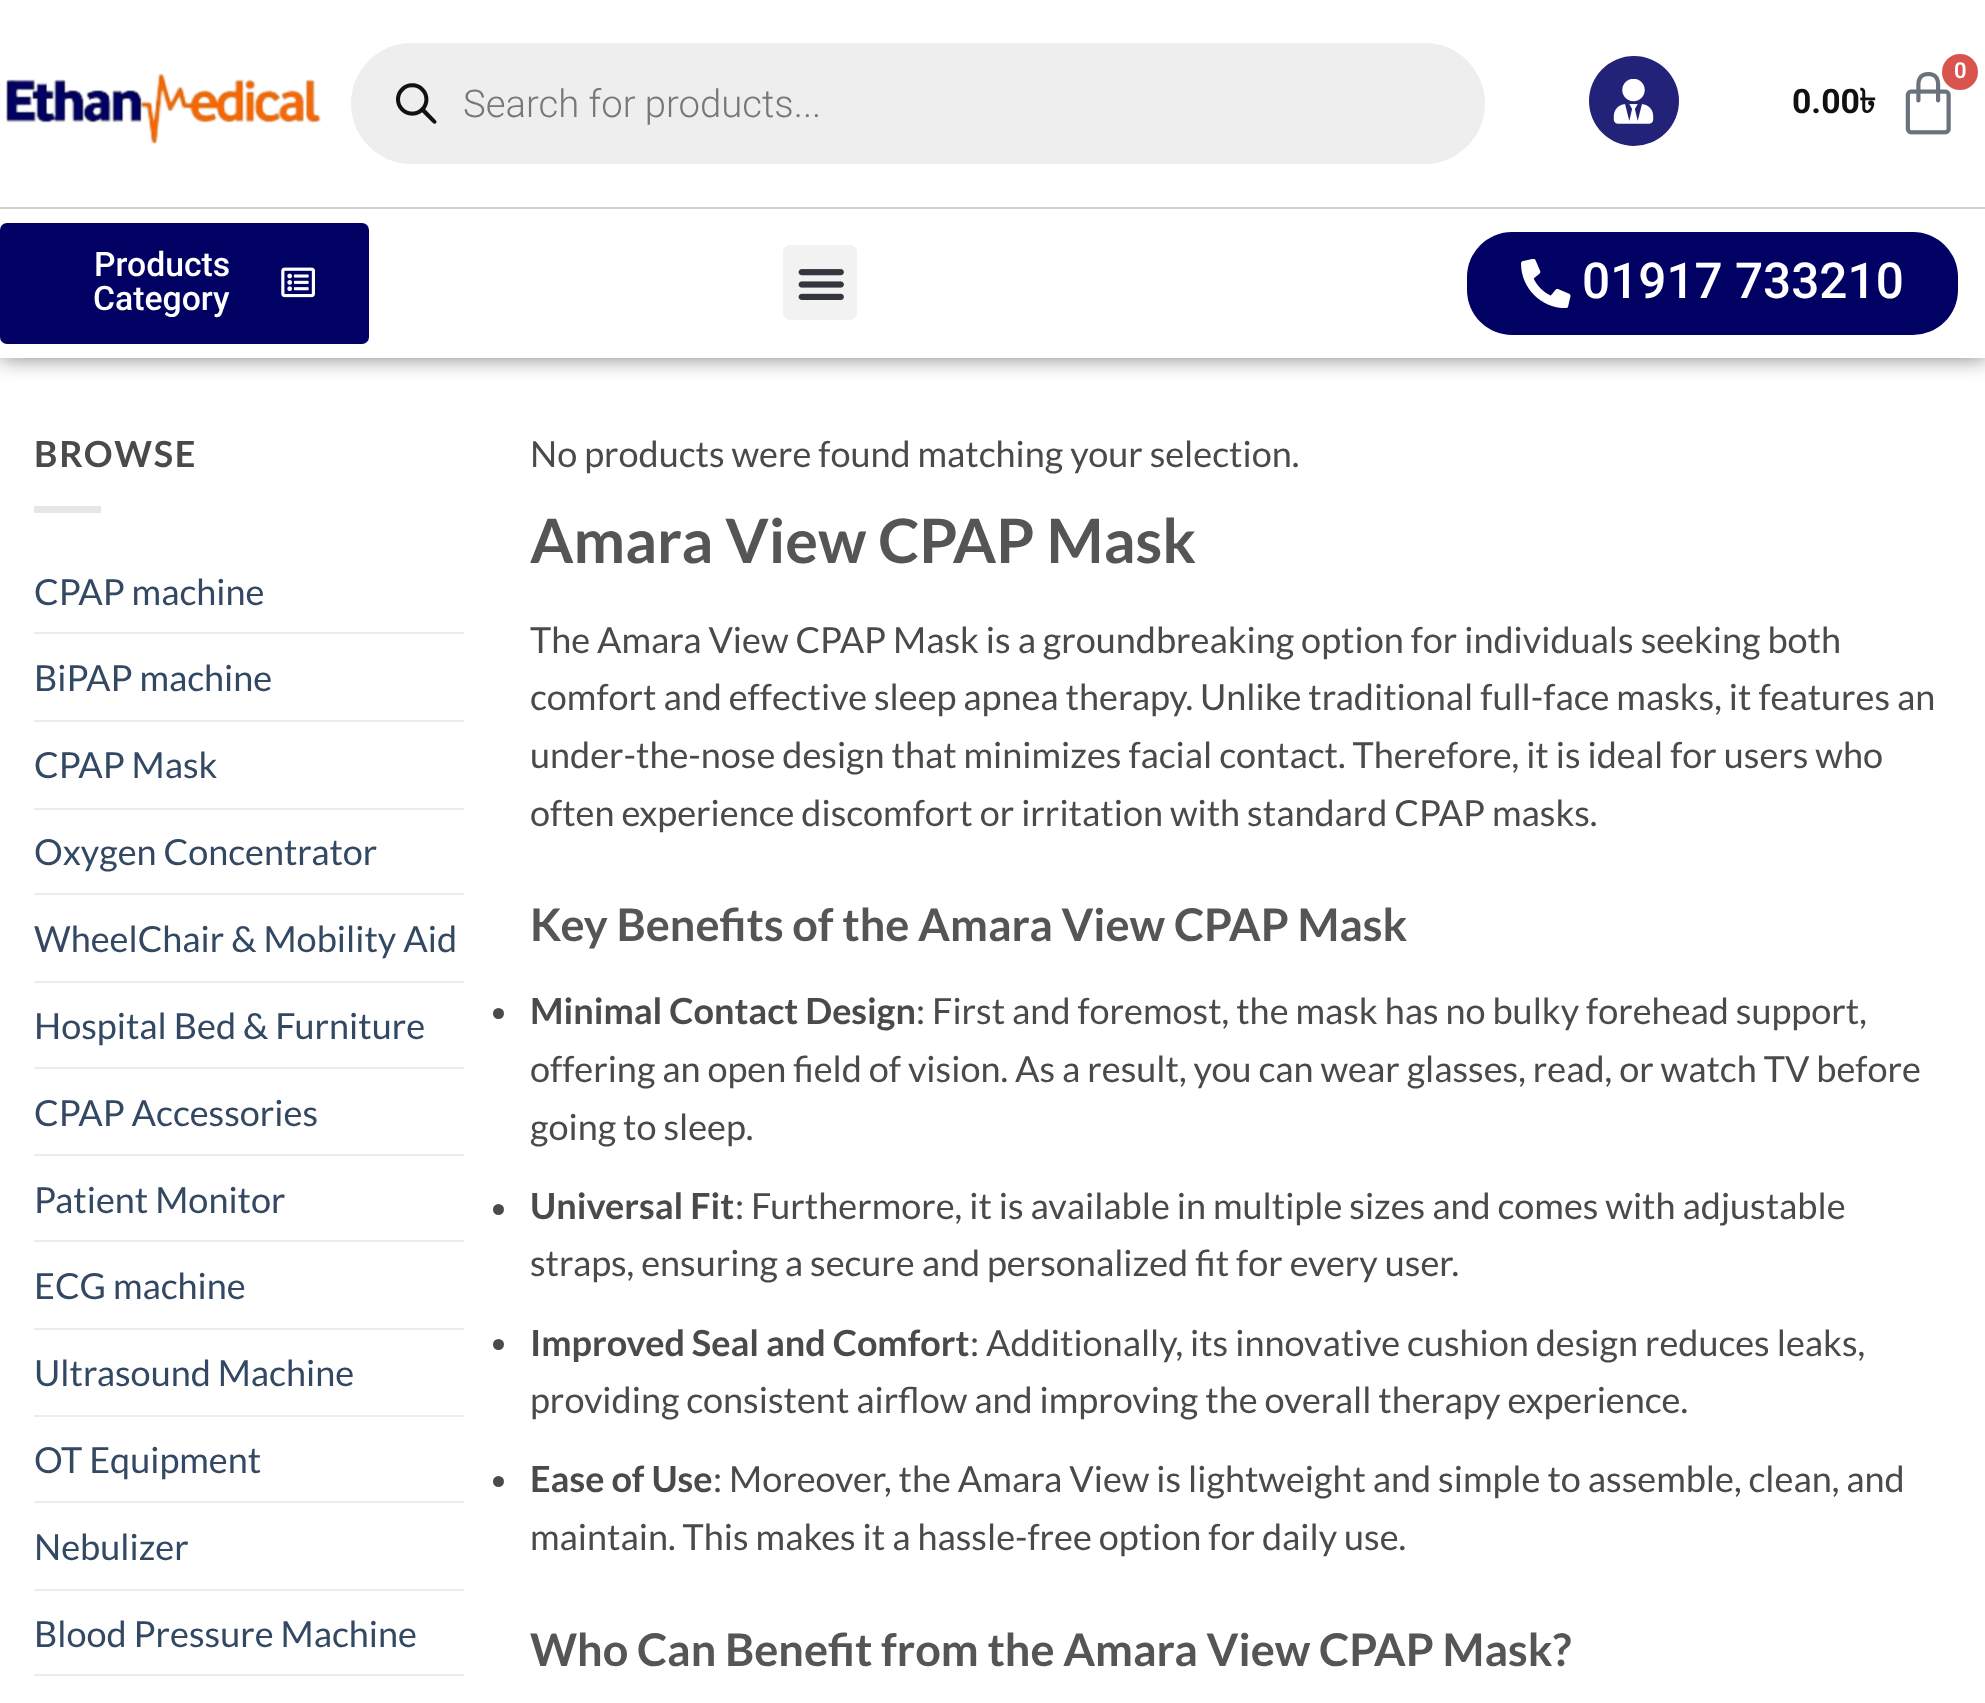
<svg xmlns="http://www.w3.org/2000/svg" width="1985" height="1703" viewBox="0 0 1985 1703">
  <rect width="100%" height="100%" fill="#fff"/>
  <path d="M0 209h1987v149H0z" fill="#00000080" filter="blur(11px)"/>
  <path d="M0 186h1985v21H0z" fill="#fff"/>
  <path d="M0 207h1985v2H0z" fill="#cfcfcf"/>
  <image x="5" y="73" width="316" height="72" href="img/1.png"/>
  <rect x="351" y="43" width="1134" height="121" rx="60.5" fill="#eee"/>
  <image x="396" y="83" width="41" height="41" href="img/2.png"/>
  <circle cx="1634" cy="101" r="45" fill="#222278"/>
  <image x="1613" y="79" width="41" height="45" href="img/3.png"/>
  <image x="1905" y="72" width="46" height="63" href="img/4.png"/>
  <circle cx="1960" cy="72" r="18" fill="#d9534f"/>
  <path d="M0 209h1985v149H0z" fill="#fff"/>
  <rect y="223" width="369" height="121" rx="7" fill="#010164"/>
  <image x="281" y="267" width="34" height="31" href="img/5.png"/>
  <rect x="783" y="245" width="74" height="75" rx="7" fill="#f2f2f2"/>
  <image x="798" y="269" width="46" height="31" href="img/6.png"/>
  <rect x="1467" y="232" width="491" height="103" rx="45" fill="#010164"/>
  <image x="1521" y="259" width="50" height="49" href="img/7.png"/>
  <path d="M34 506h67v7H34z" fill="#e6e6e6"/>
  <path d="M34 632h430v2H34z" fill="#ececec"/>
  <path d="M34 720h430v2H34z" fill="#ececec"/>
  <path d="M34 808h430v2H34z" fill="#ececec"/>
  <path d="M34 893h430v2H34z" fill="#ececec"/>
  <path d="M34 981h430v2H34z" fill="#ececec"/>
  <path d="M34 1067h430v2H34z" fill="#ececec"/>
  <path d="M34 1154h430v2H34z" fill="#ececec"/>
  <path d="M34 1240h430v2H34z" fill="#ececec"/>
  <path d="M34 1328h430v2H34z" fill="#ececec"/>
  <path d="M34 1415h430v2H34z" fill="#ececec"/>
  <path d="M34 1501h430v2H34z" fill="#ececec"/>
  <path d="M34 1589h430v2H34z" fill="#ececec"/>
  <path d="M34 1674h430v2H34z" fill="#ececec"/>
  <circle cx="498.5" cy="1013.5" r="5.5" fill="#4a4a4a"/>
  <circle cx="498.5" cy="1209.5" r="5.5" fill="#4a4a4a"/>
  <circle cx="498.5" cy="1344.5" r="5.5" fill="#4a4a4a"/>
  <circle cx="498.5" cy="1481.5" r="5.5" fill="#4a4a4a"/>
  <text x="463" y="117" font-family="Roboto" font-size="38.25" font-weight="300" fill="#777">Search for products...</text>
  <text x="1954" y="78" font-family="Roboto" font-size="22" font-weight="600" fill="#fff">0</text>
  <text x="1792" y="113" font-family="Roboto" font-size="33.75" font-weight="bold" fill="#111">0.00</text>
  <text x="1859" y="113" font-family="Lohit Bengali" font-size="33.75" font-weight="bold" fill="#111">৳</text>
  <g font-family="Roboto" font-size="33.75" font-weight="500" fill="#fff">
    <text x="94" y="276">Products</text>
    <text x="93" y="310">Category</text>
  </g>
  <text x="1582" y="298" font-family="Roboto" font-size="49.5" font-weight="500" fill="#fff">01917 733210</text>
  <text x="34" y="467" font-family="Lato" font-size="36" font-weight="bold" letter-spacing="1.75" fill="#4a4a4a">BROWSE</text>
  <g font-family="Lato" font-size="36" fill="#334862">
    <text x="34" y="605">CPAP machine</text>
    <text x="34" y="691">BiPAP machine</text>
    <text x="34" y="778">CPAP Mask</text>
    <text x="34" y="865">Oxygen Concentrator</text>
    <text x="34" y="952">WheelChair &amp; Mobility Aid</text>
    <text x="34" y="1039">Hospital Bed &amp; Furniture</text>
    <text x="34" y="1126">CPAP Accessories</text>
    <text x="34" y="1213">Patient Monitor</text>
    <text x="34" y="1299">ECG machine</text>
    <text x="34" y="1386">Ultrasound Machine</text>
    <text x="34" y="1473">OT Equipment</text>
    <text x="34" y="1560">Nebulizer</text>
    <text x="34" y="1647">Blood Pressure Machine</text>
  </g>
  <text x="530" y="467" font-family="Lato" font-size="36" fill="#4a4a4a">No products were found matching your selection.</text>
  <text x="530" y="563" font-family="Lato" font-size="61.25" font-weight="bold" fill="#555">Amara View CPAP Mask</text>
  <g font-family="Lato" font-size="36" fill="#4a4a4a">
    <text x="530" y="653">The Amara View CPAP Mask is a groundbreaking option for individuals seeking both</text>
    <text x="530" y="710">comfort and effective sleep apnea therapy. Unlike traditional full-face masks, it features an</text>
    <text x="530" y="768">under-the-nose design that minimizes facial contact. Therefore, it is ideal for users who</text>
    <text x="530" y="826">often experience discomfort or irritation with standard CPAP masks.</text>
  </g>
  <text x="530" y="941" font-family="Lato" font-size="45" font-weight="bold" fill="#555">Key Benefits of the Amara View CPAP Mask</text>
  <text x="530" y="1024" font-family="Lato" font-size="36" font-weight="bold" fill="#4a4a4a">Minimal Contact Design</text>
  <g font-family="Lato" font-size="36" fill="#4a4a4a">
    <text x="916" y="1024">: First and foremost, the mask has no bulky forehead support,</text>
    <text x="530" y="1082">offering an open field of vision. As a result, you can wear glasses, read, or watch TV before</text>
    <text x="530" y="1140">going to sleep.</text>
  </g>
  <text x="530" y="1219" font-family="Lato" font-size="36" font-weight="bold" fill="#4a4a4a">Universal Fit</text>
  <g font-family="Lato" font-size="36" fill="#4a4a4a">
    <text x="735" y="1219">: Furthermore, it is available in multiple sizes and comes with adjustable</text>
    <text x="530" y="1276">straps, ensuring a secure and personalized fit for every user.</text>
  </g>
  <text x="530" y="1356" font-family="Lato" font-size="36" font-weight="bold" fill="#4a4a4a">Improved Seal and Comfort</text>
  <g font-family="Lato" font-size="36" fill="#4a4a4a">
    <text x="970" y="1356">: Additionally, its innovative cushion design reduces leaks,</text>
    <text x="530" y="1413">providing consistent airflow and improving the overall therapy experience.</text>
  </g>
  <text x="530" y="1492" font-family="Lato" font-size="36" font-weight="bold" fill="#4a4a4a">Ease of Use</text>
  <g font-family="Lato" font-size="36" fill="#4a4a4a">
    <text x="713" y="1492">: Moreover, the Amara View is lightweight and simple to assemble, clean, and</text>
    <text x="530" y="1550">maintain. This makes it a hassle-free option for daily use.</text>
  </g>
  <text x="530" y="1666" font-family="Lato" font-size="45" font-weight="bold" fill="#555">Who Can Benefit from the Amara View CPAP Mask?</text>
</svg>
